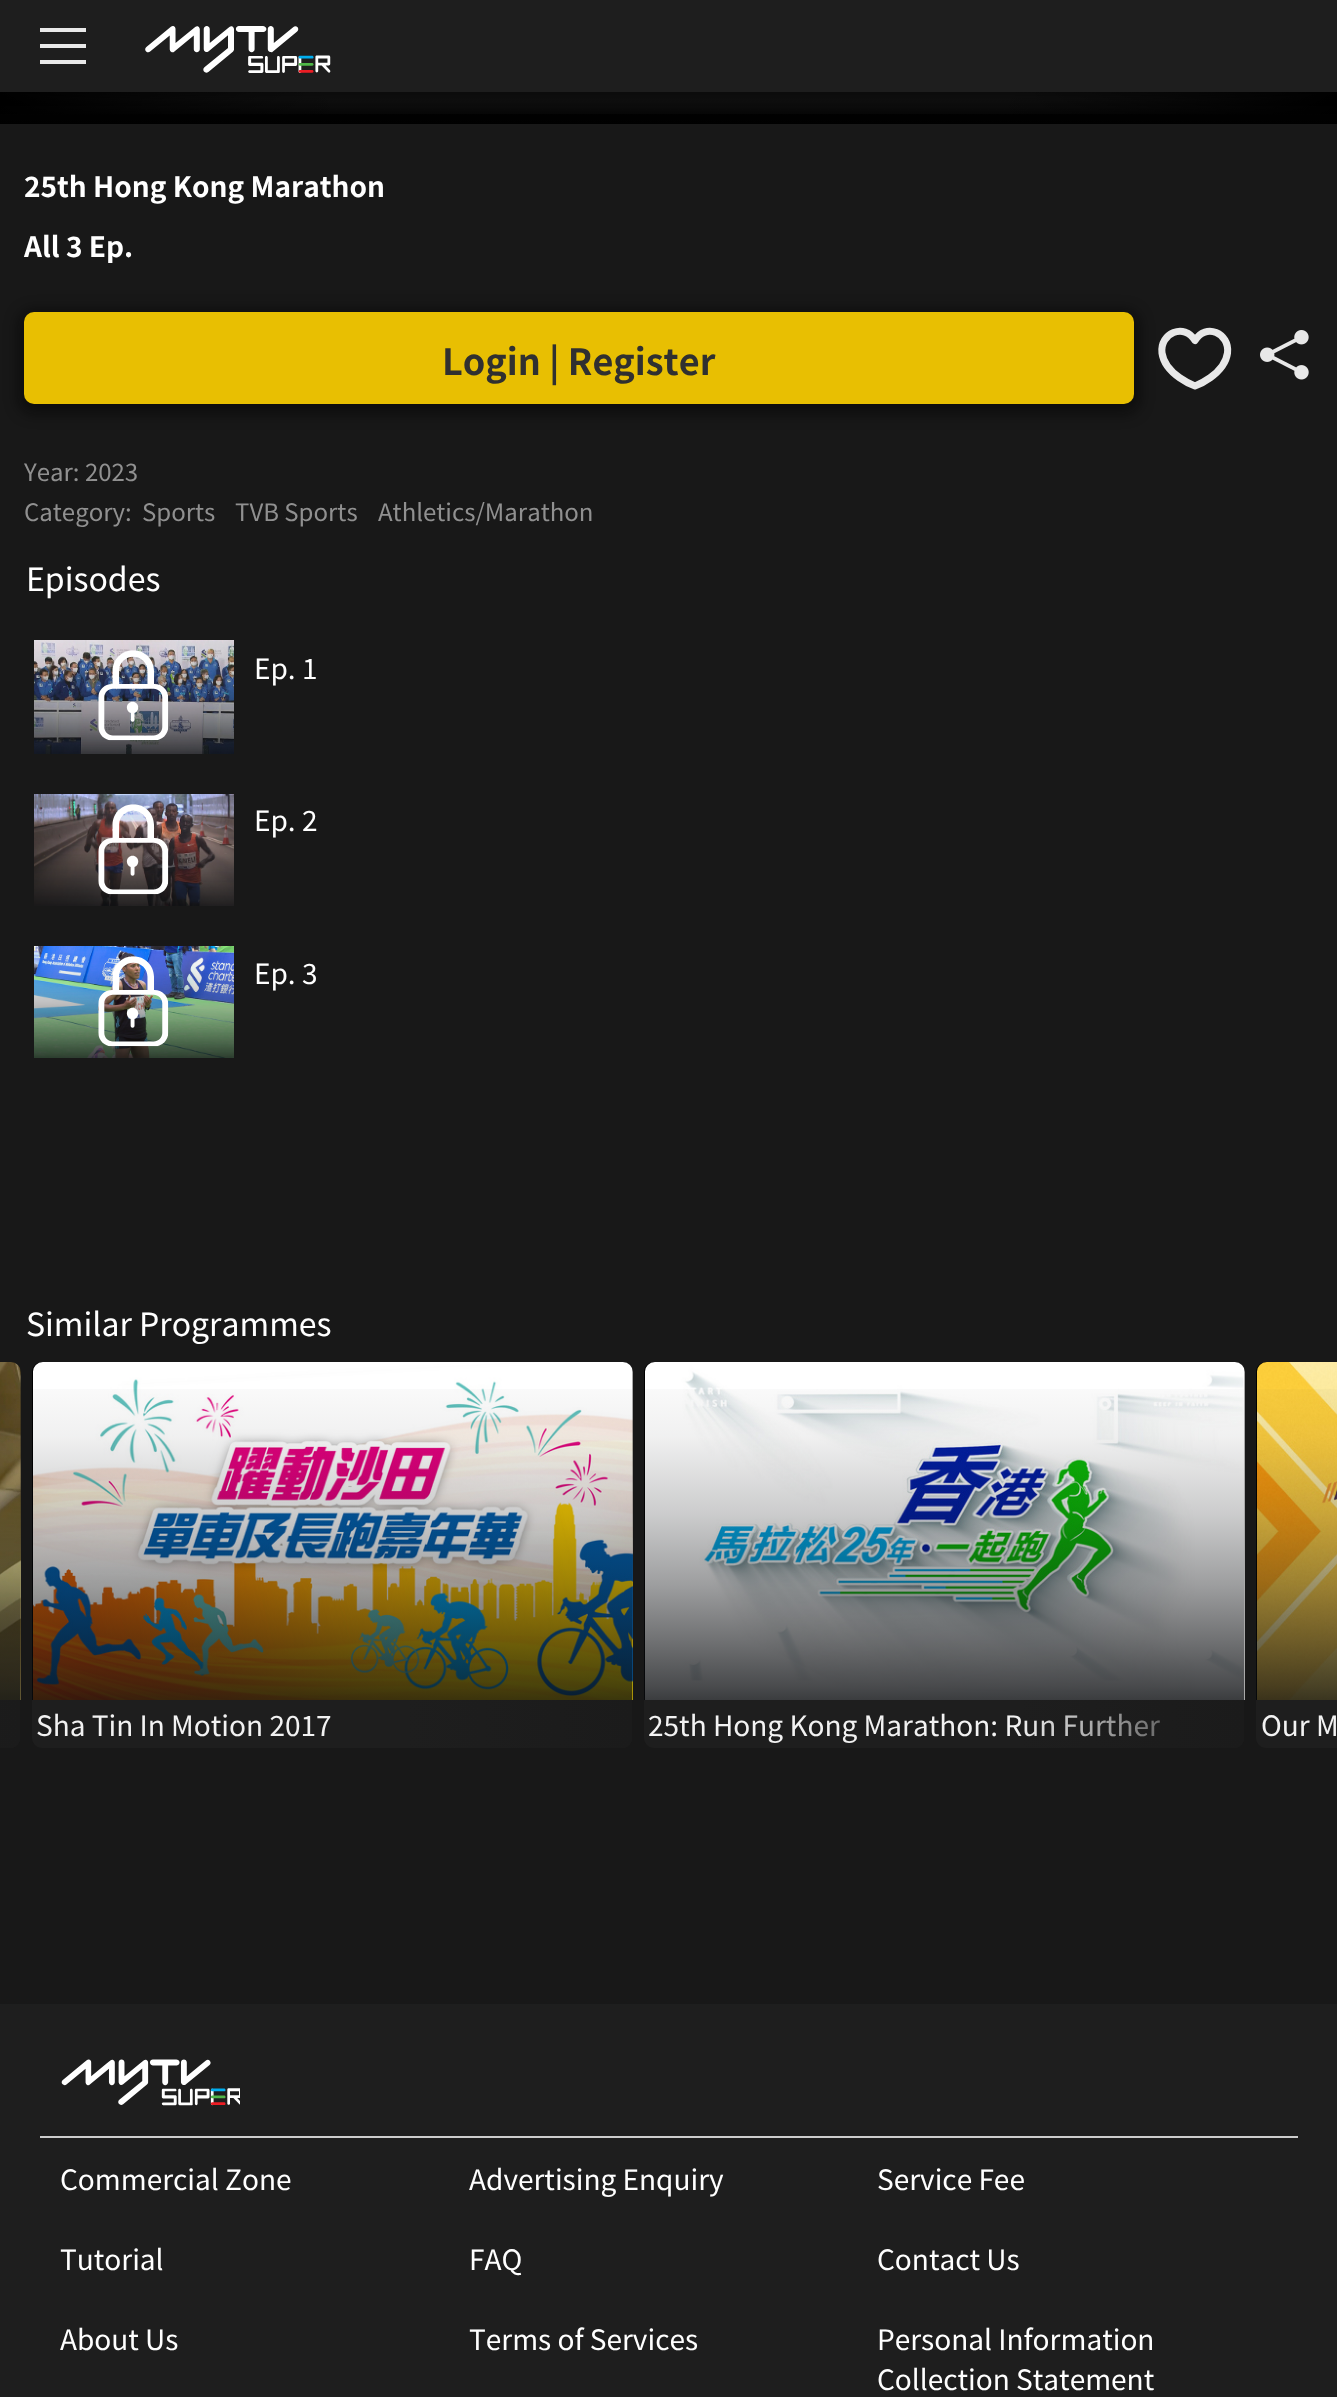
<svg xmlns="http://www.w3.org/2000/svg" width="1337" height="2397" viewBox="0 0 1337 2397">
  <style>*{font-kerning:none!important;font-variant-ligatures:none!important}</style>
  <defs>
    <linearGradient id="g1" gradientUnits="userSpaceOnUse" x1="669" y1="-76" x2="669" y2="124"><stop offset="0" stop-color="#000" stop-opacity="0"/><stop offset="1" stop-color="#000"/></linearGradient>
    <radialGradient id="g2" gradientUnits="userSpaceOnUse" cx="669" cy="-257" r="770"><stop offset="0" stop-color="#000" stop-opacity="0"/><stop offset="0.63" stop-color="#000" stop-opacity="0"/><stop offset="1" stop-color="#000"/></radialGradient>
    <linearGradient id="g3" gradientUnits="userSpaceOnUse" x1="-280" y1="1700" x2="-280" y2="1362"><stop offset="0" stop-color="#0a0c0f" stop-opacity="0.8"/><stop offset="0.04" stop-color="#0a0c0f" stop-opacity="0.74"/><stop offset="0.17" stop-color="#0a0c0f" stop-opacity="0.59"/><stop offset="0.34" stop-color="#0a0c0f" stop-opacity="0.4"/><stop offset="0.55" stop-color="#0a0c0f" stop-opacity="0.21"/><stop offset="0.78" stop-color="#0a0c0f" stop-opacity="0.06"/><stop offset="1" stop-color="#0a0c0f" stop-opacity="0"/></linearGradient>
    <linearGradient id="g4" gradientUnits="userSpaceOnUse" x1="21" y1="1724" x2="-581" y2="1724"><stop offset="0" stop-color="#1b1b1b"/><stop offset="0.38" stop-color="#1b1b1b" stop-opacity="0"/></linearGradient>
    <linearGradient id="g5" gradientUnits="userSpaceOnUse" x1="333" y1="1700" x2="333" y2="1362"><stop offset="0" stop-color="#0a0c0f" stop-opacity="0.8"/><stop offset="0.04" stop-color="#0a0c0f" stop-opacity="0.74"/><stop offset="0.17" stop-color="#0a0c0f" stop-opacity="0.59"/><stop offset="0.34" stop-color="#0a0c0f" stop-opacity="0.4"/><stop offset="0.55" stop-color="#0a0c0f" stop-opacity="0.21"/><stop offset="0.78" stop-color="#0a0c0f" stop-opacity="0.06"/><stop offset="1" stop-color="#0a0c0f" stop-opacity="0"/></linearGradient>
    <linearGradient id="g6" gradientUnits="userSpaceOnUse" x1="945" y1="1700" x2="945" y2="1362"><stop offset="0" stop-color="#0a0c0f" stop-opacity="0.8"/><stop offset="0.04" stop-color="#0a0c0f" stop-opacity="0.74"/><stop offset="0.17" stop-color="#0a0c0f" stop-opacity="0.59"/><stop offset="0.34" stop-color="#0a0c0f" stop-opacity="0.4"/><stop offset="0.55" stop-color="#0a0c0f" stop-opacity="0.21"/><stop offset="0.78" stop-color="#0a0c0f" stop-opacity="0.06"/><stop offset="1" stop-color="#0a0c0f" stop-opacity="0"/></linearGradient>
    <linearGradient id="g7" gradientUnits="userSpaceOnUse" x1="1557" y1="1700" x2="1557" y2="1362"><stop offset="0" stop-color="#0a0c0f" stop-opacity="0.8"/><stop offset="0.04" stop-color="#0a0c0f" stop-opacity="0.74"/><stop offset="0.17" stop-color="#0a0c0f" stop-opacity="0.59"/><stop offset="0.34" stop-color="#0a0c0f" stop-opacity="0.4"/><stop offset="0.55" stop-color="#0a0c0f" stop-opacity="0.21"/><stop offset="0.78" stop-color="#0a0c0f" stop-opacity="0.06"/><stop offset="1" stop-color="#0a0c0f" stop-opacity="0"/></linearGradient>
    <linearGradient id="g8" gradientUnits="userSpaceOnUse" x1="633" y1="1724" x2="33" y2="1724"><stop offset="0" stop-color="#1b1b1b"/><stop offset="0.38" stop-color="#1b1b1b" stop-opacity="0"/></linearGradient>
    <linearGradient id="g9" gradientUnits="userSpaceOnUse" x1="1245" y1="1724" x2="645" y2="1724"><stop offset="0" stop-color="#1b1b1b"/><stop offset="0.38" stop-color="#1b1b1b" stop-opacity="0"/></linearGradient>
  </defs>
  <rect width="100%" height="100%" fill="#181818"/>
  <image x="0" y="92" width="1337" height="22" href="img/2.png"/>
  <path d="M0 92h1337v32H0z" fill="url(#g1)"/>
  <path d="M0 92h1337v22H0z" fill="url(#g2)"/>
  <path d="M0 4h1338v92H0z" fill="#00000080" filter="blur(4px)"/>
  <path d="M0 0h1337v92H0z" fill="#1e1e1e"/>
  <path d="M40 28h46v4H40z" fill="#e9e9e9"/>
  <path d="M40 44h46v4H40z" fill="#e9e9e9"/>
  <path d="M40 60h46v4H40z" fill="#e9e9e9"/>
  <image x="145" y="26" width="186" height="47" href="img/1.png"/>
  <rect x="18" y="310" width="1122" height="104" rx="16" fill="#02020280" filter="blur(7px)"/>
  <rect x="24" y="312" width="1110" height="92" rx="10" fill="#e8bf02"/>
  <path d="M1195 340.5C1184.5 322.5 1159.5 333 1162 353C1165 375 1195 386 1195 386C1195 386 1224.5 375 1227.5 353C1230 333 1205.5 322.5 1195 340.5Z" fill="none" stroke="#e8e8e8" stroke-width="7.1" stroke-linecap="round" stroke-linejoin="round"/>
  <image x="1260" y="330" width="49" height="50" href="img/3.png"/>
  <image x="34" y="640" width="200" height="114" href="img/4.png"/>
  <image x="98" y="650" width="71" height="91" href="img/5.png"/>
  <image x="34" y="794" width="200" height="112" href="img/6.png"/>
  <image x="98" y="804" width="71" height="91" href="img/7.png"/>
  <image x="34" y="946" width="200" height="112" href="img/8.png"/>
  <image x="98" y="956" width="71" height="91" href="img/9.png"/>
  <image x="0" y="1362" width="21" height="338" href="img/10.png"/>
  <path d="M0 1394h20v306H0z" fill="url(#g3)"/>
  <path d="M0 1700H20V1738C20 1743.5 15.5 1748 10 1748H0Z" fill="#1e1e1e"/>
  <path d="M0 1700H20V1738C20 1743.5 15.5 1748 10 1748H0Z" fill="url(#g4)"/>
  <path d="M42 1362H622C627.5 1362 632 1366.5 632 1372V1700H32V1372C32 1366.5 36.5 1362 42 1362Z" fill="#000"/>
  <image x="33" y="1362" width="600" height="338" href="img/11.png"/>
  <path d="M32 1389h600v311H32z" fill="url(#g5)"/>
  <path d="M32 1700H632V1738C632 1743.5 627.5 1748 622 1748H42C36.5 1748 32 1743.5 32 1738Z" fill="#1e1e1e"/>
  <path d="M654 1362H1234C1239.5 1362 1244 1366.5 1244 1372V1700H644V1372C644 1366.5 648.5 1362 654 1362Z" fill="#000"/>
  <image x="645" y="1362" width="600" height="338" href="img/12.png"/>
  <path d="M644 1389h600v311H644z" fill="url(#g6)"/>
  <path d="M644 1700H1244V1738C1244 1743.5 1239.5 1748 1234 1748H654C648.5 1748 644 1743.5 644 1738Z" fill="#1e1e1e"/>
  <path d="M1266 1362H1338V1700H1256V1372C1256 1366.5 1260.5 1362 1266 1362Z" fill="#000"/>
  <image x="1257" y="1362" width="80" height="338" href="img/13.png"/>
  <path d="M1256 1389h81v311H1256z" fill="url(#g7)"/>
  <path d="M1256 1700H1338V1748H1266C1260.5 1748 1256 1743.5 1256 1738Z" fill="#1e1e1e"/>
  <path d="M0 2004h1337v393H0z" fill="#1e1e1e"/>
  <image x="61" y="2059" width="179" height="47" href="img/14.png"/>
  <path d="M40 2136h1258v2H40z" fill="#ccc"/>
  <g font-family="Noto Sans TC" font-size="28" font-weight="bold" fill="#fff">
    <text x="24" y="197">25th Hong Kong Marathon</text>
    <text x="24" y="257">All 3 Ep.</text>
  </g>
  <text x="442" y="375" font-family="Noto Sans TC" font-size="36" font-weight="bold" fill="#303030">Login | Register</text>
  <g font-family="Noto Sans TC" font-size="24" fill="#909090">
    <text x="24" y="481">Year: 2023</text>
    <text x="24" y="521">Category:</text>
    <text x="142" y="521">Sports</text>
    <text x="235" y="521">TVB Sports</text>
    <text x="378" y="521">Athletics/Marathon</text>
  </g>
  <text x="26" y="591" font-family="Noto Sans TC" font-size="32" fill="#fff">Episodes</text>
  <g font-family="Noto Sans TC" font-size="28" fill="#fff">
    <text x="254" y="679">Ep. 1</text>
    <text x="254" y="831">Ep. 2</text>
    <text x="254" y="984">Ep. 3</text>
  </g>
  <text x="26" y="1336" font-family="Noto Sans TC" font-size="32" fill="#fff">Similar Programmes</text>
  <text x="36" y="1736" font-family="Noto Sans TC" font-size="28" fill="#f2f2f2">Sha Tin In Motion 2017</text>
  <path d="M32 1700H632V1738C632 1743.5 627.5 1748 622 1748H42C36.5 1748 32 1743.5 32 1738Z" fill="url(#g8)"/>
  <text x="648" y="1736" font-family="Noto Sans TC" font-size="28" fill="#f2f2f2">25th Hong Kong Marathon: Run Further</text>
  <path d="M644 1700H1244V1738C1244 1743.5 1239.5 1748 1234 1748H654C648.5 1748 644 1743.5 644 1738Z" fill="url(#g9)"/>
  <text x="1261" y="1736" font-family="Noto Sans TC" font-size="28" fill="#f2f2f2">Our M</text>
  <g font-family="Noto Sans TC" font-size="28" fill="#fff">
    <text x="60" y="2190">Commercial Zone</text>
    <text x="469" y="2190">Advertising Enquiry</text>
    <text x="877" y="2190">Service Fee</text>
    <text x="60" y="2270">Tutorial</text>
    <text x="469" y="2270">FAQ</text>
    <text x="877" y="2270">Contact Us</text>
    <text x="60" y="2350">About Us</text>
    <text x="469" y="2350">Terms of Services</text>
    <text x="877" y="2350">Personal Information</text>
    <text x="877" y="2390">Collection Statement</text>
  </g>
</svg>
